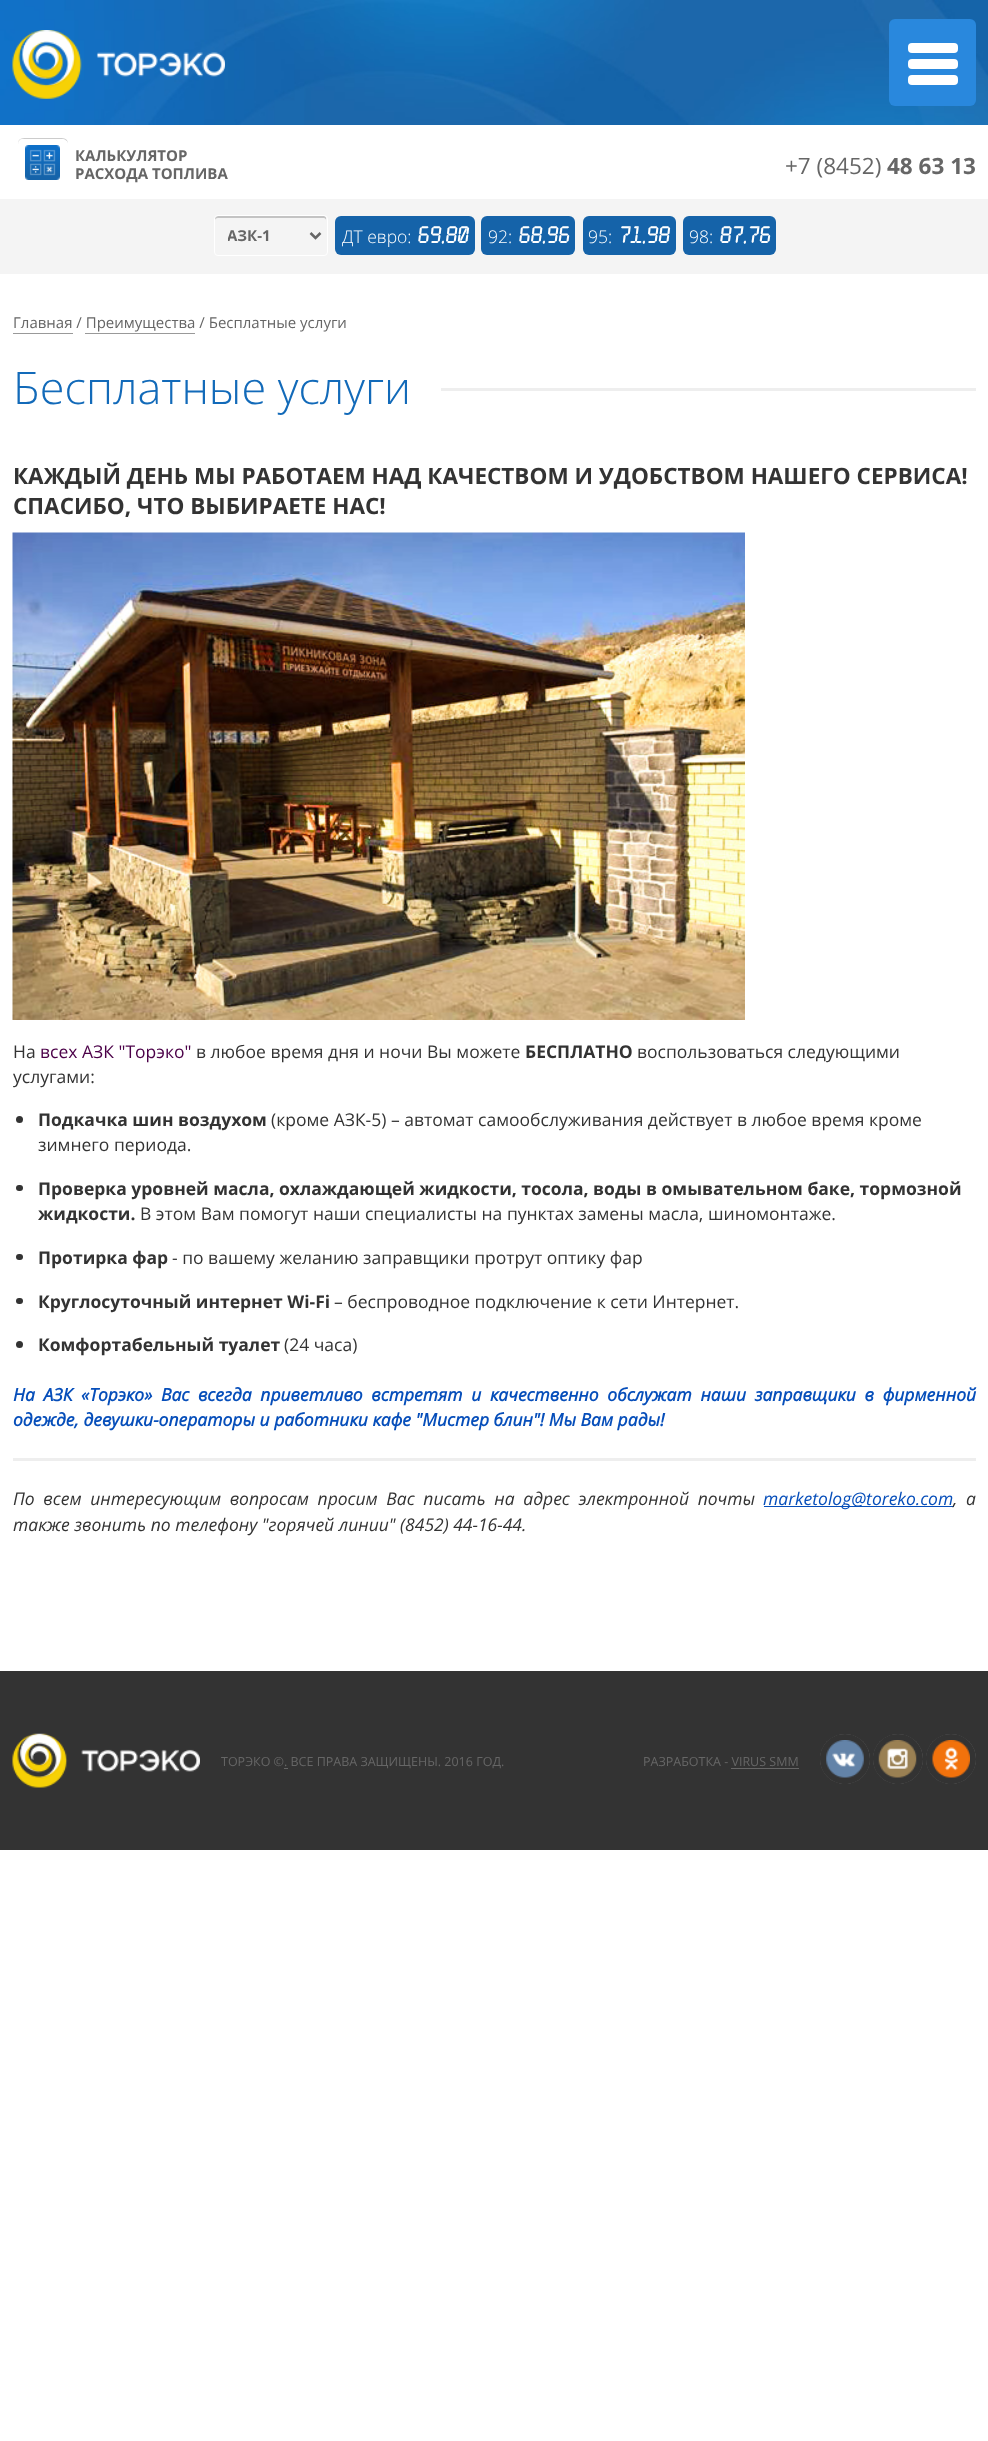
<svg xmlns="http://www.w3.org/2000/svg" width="988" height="2441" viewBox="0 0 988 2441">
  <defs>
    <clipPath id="clip1"><path d="M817 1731H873V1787H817ZM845 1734C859 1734 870 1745 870 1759C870 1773 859 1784 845 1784C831 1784 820 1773 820 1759C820 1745 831 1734 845 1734Z" clip-rule="evenodd"/></clipPath>
    <clipPath id="clip2"><path d="M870 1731H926V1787H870ZM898 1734C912 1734 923 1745 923 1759C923 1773 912 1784 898 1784C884 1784 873 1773 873 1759C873 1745 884 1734 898 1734Z" clip-rule="evenodd"/></clipPath>
    <clipPath id="clip3"><path d="M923 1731H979V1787H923ZM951 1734C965 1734 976 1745 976 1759C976 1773 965 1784 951 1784C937 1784 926 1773 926 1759C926 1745 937 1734 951 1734Z" clip-rule="evenodd"/></clipPath>
    <clipPath id="clip4"><path d="M228 224h71v24H228z"/></clipPath>
  </defs>
  <rect width="100%" height="100%" fill="#fff"/>
  <image x="0" y="0" width="988" height="125" href="img/1.png"/>
  <image x="12" y="30" width="213" height="69" href="img/2.png"/>
  <rect x="889" y="19" width="87" height="87" rx="6" fill="#2988dd"/>
  <rect x="908" y="59" width="50" height="10" rx="4" fill="#fff"/>
  <rect x="908" y="43" width="50" height="10" rx="4" fill="#fff"/>
  <rect x="908" y="75" width="50" height="10" rx="4" fill="#fff"/>
  <image x="25" y="145" width="35" height="35" href="img/3.png"/>
  <path d="M22 139H62C65 139 68 141 68 144C68 137 62 138 56 138H30C24 138 18 137 18 144C18 141 20 139 22 139Z" fill="#ccc"/>
  <rect x="16.5" y="136.5" width="52" height="52" rx="5.5" fill="none" stroke="#fff"/>
  <path d="M0 199h988v75H0z" fill="#f4f4f4"/>
  <path d="M218 218H324C325 218 326 219 326 220V218C326 217 325 216 324 216H218C216 216 215 217 215 218V220C215 219 216 218 218 218Z" fill="#c3c3c3"/>
  <rect x="214.5" y="215.5" width="113" height="40" rx="3.5" fill="none" stroke="#fff"/>
  <path d="M310.5 233L315.5 238L320.5 233" fill="none" stroke="#666" stroke-width="2.5"/>
  <rect x="335" y="216" width="140" height="39" rx="6" fill="#1563a9"/>
  <rect x="481" y="216" width="94" height="39" rx="6" fill="#1563a9"/>
  <rect x="583" y="216" width="93" height="39" rx="6" fill="#1563a9"/>
  <rect x="683" y="216" width="93" height="39" rx="6" fill="#1563a9"/>
  <path d="M13 333h60v1H13z" fill="#999"/>
  <path d="M85 333h110v1H85z" fill="#999"/>
  <path d="M441 388h535v3H441z" fill="#eee"/>
  <image x="12" y="532" width="733" height="488" href="img/4.png"/>
  <circle cx="19.5" cy="1119.5" r="3.5" fill="#333"/>
  <rect x="16" y="1185" width="7" height="6" rx="3" fill="#333"/>
  <rect x="16" y="1254" width="7" height="6" rx="3" fill="#333"/>
  <rect x="16" y="1298" width="7" height="6" rx="3" fill="#333"/>
  <circle cx="19.5" cy="1344.5" r="3.5" fill="#333"/>
  <path d="M13 1458h963v3H13z" fill="#eee"/>
  <path d="M764 1506h190v1H764z" fill="#064eba"/>
  <path d="M0 1671h988v179H0z" fill="#333"/>
  <image x="12" y="1733" width="188" height="55" href="img/5.png"/>
  <path d="M284 1768h4v1H284z" fill="#666"/>
  <path d="M731 1768h68v1H731z" fill="#666"/>
  <g clip-path="url(#clip1)">
    <rect x="820" y="1734" width="50" height="50" rx="25" fill="#ffffff4d" filter="blur(0.5px)"/>
  </g>
  <image x="826" y="1740" width="38" height="38" href="img/6.png"/>
  <g clip-path="url(#clip2)">
    <rect x="873" y="1734" width="50" height="50" rx="25" fill="#ffffff4d" filter="blur(0.5px)"/>
  </g>
  <image x="878" y="1740" width="39" height="38" href="img/7.png"/>
  <g clip-path="url(#clip3)">
    <rect x="926" y="1734" width="50" height="50" rx="25" fill="#ffffff4d" filter="blur(0.5px)"/>
  </g>
  <image x="932" y="1740" width="38" height="38" href="img/8.png"/>
  <g font-family="Open Sans" font-size="15" font-weight="bold" fill="#666">
    <text x="75" y="161">КАЛЬКУЛЯТОР</text>
    <text x="75" y="179">РАСХОДА ТОПЛИВА</text>
  </g>
  <text x="785" y="174" font-family="Open Sans" font-size="22.5" fill="#666">+7 (8452)</text>
  <text x="887" y="174" font-family="Open Sans" font-size="22.5" font-weight="bold" fill="#666">48 63 13</text>
  <g clip-path="url(#clip4)">
    <text x="227" y="241" font-family="Open Sans" font-size="15" font-weight="bold" fill="#666">АЗК-1</text>
  </g>
  <text x="342" y="243" font-family="Open Sans" font-size="17.5" font-weight="300" fill="#fff">ДТ евро:</text>
  <text x="417" y="243" font-family="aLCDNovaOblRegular" font-size="22.5" fill="#fff">69.80</text>
  <text x="488" y="243" font-family="Open Sans" font-size="17.5" font-weight="300" fill="#fff">92:</text>
  <text x="518" y="243" font-family="aLCDNovaOblRegular" font-size="22.5" fill="#fff">68.96</text>
  <text x="588" y="243" font-family="Open Sans" font-size="17.5" font-weight="300" fill="#fff">95:</text>
  <text x="618" y="243" font-family="aLCDNovaOblRegular" font-size="22.5" fill="#fff">71.98</text>
  <text x="689" y="243" font-family="Open Sans" font-size="17.5" font-weight="300" fill="#fff">98:</text>
  <text x="719" y="243" font-family="aLCDNovaOblRegular" font-size="22.5" fill="#fff">87.76</text>
  <text x="13" y="328" font-family="Open Sans" font-size="15" fill="#666">Главная / Преимущества / Бесплатные услуги</text>
  <text x="13" y="404" font-family="Open Sans" font-size="45" font-weight="300" fill="#126ab9">Бесплатные услуги</text>
  <g font-family="Open Sans" font-size="22.5" font-weight="bold" fill="#333">
    <text x="13" y="484">КАЖДЫЙ ДЕНЬ МЫ РАБОТАЕМ НАД КАЧЕСТВОМ И УДОБСТВОМ НАШЕГО СЕРВИСА!</text>
    <text x="13" y="514">СПАСИБО, ЧТО ВЫБИРАЕТЕ НАС!</text>
  </g>
  <text x="13" y="1058" font-family="Open Sans" font-size="17.5" fill="#333">На</text>
  <text x="40" y="1058" font-family="Open Sans" font-size="17.5" fill="#4b0048">всех АЗК "Торэко"</text>
  <text x="196" y="1058" font-family="Open Sans" font-size="17.5" fill="#333">в любое время дня и ночи Вы можете</text>
  <text x="525" y="1058" font-family="Open Sans" font-size="17.5" font-weight="bold" fill="#333">БЕСПЛАТНО</text>
  <g font-family="Open Sans" font-size="17.5" fill="#333">
    <text x="637" y="1058">воспользоваться следующими</text>
    <text x="13" y="1083">услугами:</text>
  </g>
  <text x="38" y="1126" font-family="Open Sans" font-size="17.5" font-weight="bold" fill="#333">Подкачка шин воздухом</text>
  <g font-family="Open Sans" font-size="17.5" fill="#333">
    <text x="271" y="1126">(кроме АЗК-5) – автомат самообслуживания действует в любое время кроме</text>
    <text x="38" y="1151">зимнего периода.</text>
  </g>
  <g font-family="Open Sans" font-size="17.5" font-weight="bold" fill="#333">
    <text x="38" y="1195">Проверка уровней масла, охлаждающей жидкости, тосола, воды в омывательном баке, тормозной</text>
    <text x="38" y="1220">жидкости.</text>
  </g>
  <text x="140" y="1220" font-family="Open Sans" font-size="17.5" fill="#333">В этом Вам помогут наши специалисты на пунктах замены масла, шиномонтаже.</text>
  <text x="38" y="1264" font-family="Open Sans" font-size="17.5" font-weight="bold" fill="#333">Протирка фар</text>
  <text x="172" y="1264" font-family="Open Sans" font-size="17.5" fill="#333">- по вашему желанию заправщики протрут оптику фар</text>
  <text x="38" y="1308" font-family="Open Sans" font-size="17.5" font-weight="bold" fill="#333">Круглосуточный интернет Wi-Fi</text>
  <text x="334" y="1308" font-family="Open Sans" font-size="17.5" fill="#333">– беспроводное подключение к сети Интернет.</text>
  <text x="38" y="1351" font-family="Open Sans" font-size="17.5" font-weight="bold" fill="#333">Комфортабельный туалет</text>
  <text x="284" y="1351" font-family="Open Sans" font-size="17.5" fill="#333">(24 часа)</text>
  <g font-family="Open Sans" font-size="17.5" font-weight="bold" font-style="italic" fill="#064eba">
    <text x="13" y="1401" word-spacing="4.1">На АЗК «Торэко» Вас всегда приветливо встретят и качественно обслужат наши заправщики в фирменной</text>
    <text x="13" y="1426">одежде, девушки-операторы и работники кафе "Мистер блин"! Мы Вам рады!</text>
  </g>
  <text x="13" y="1505" word-spacing="4.1" font-family="Open Sans" font-size="17.5" font-style="italic" fill="#333">По всем интересующим вопросам просим Вас писать на адрес электронной почты</text>
  <text x="763" y="1505" font-family="Open Sans" font-size="17.5" font-style="italic" fill="#064eba">marketolog@toreko.com</text>
  <g font-family="Open Sans" font-size="17.5" font-style="italic" fill="#333">
    <text x="953" y="1505" word-spacing="4.1">, а</text>
    <text x="13" y="1531">также звонить по телефону "горячей линии" (8452) 44-16-44.</text>
  </g>
  <g font-family="Open Sans" font-size="12.5" fill="#666">
    <text x="221" y="1766">ТОРЭКО ©. ВСЕ ПРАВА ЗАЩИЩЕНЫ. 2016 ГОД.</text>
    <text x="643" y="1766">РАЗРАБОТКА - VIRUS SMM</text>
  </g>
</svg>
